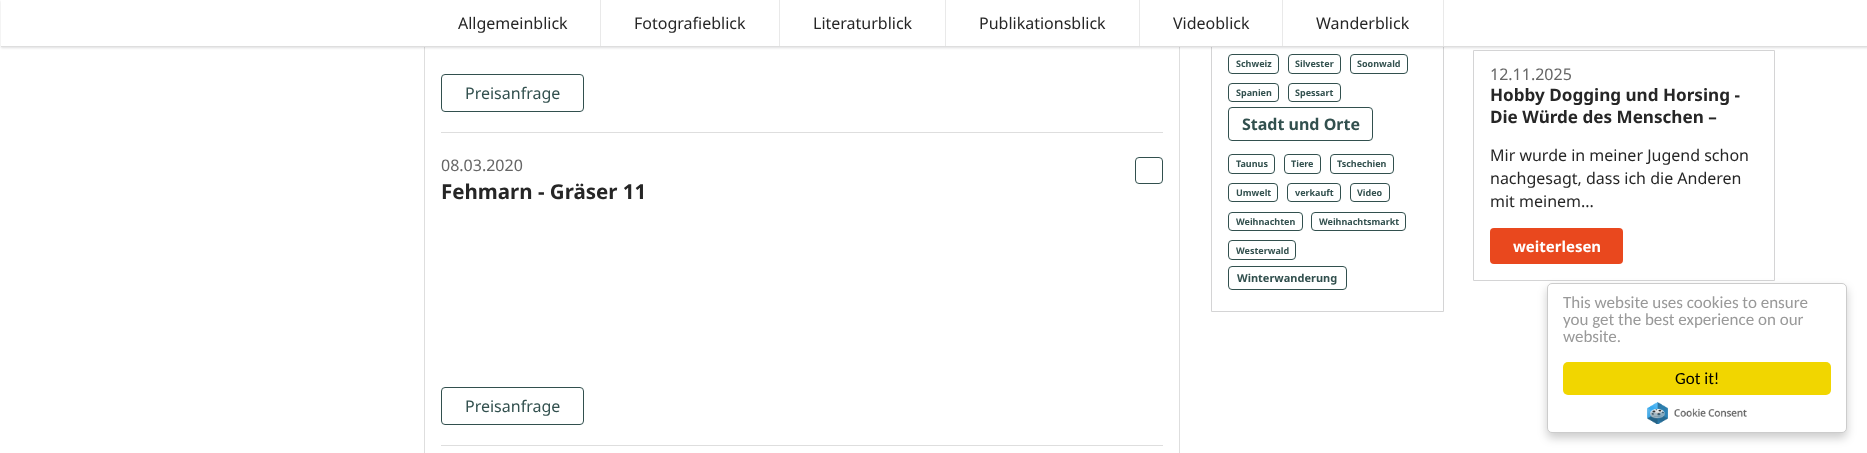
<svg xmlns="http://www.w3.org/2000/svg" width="1867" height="453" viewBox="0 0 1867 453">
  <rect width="100%" height="100%" fill="#fff"/>
  <path d="M424.5 -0.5h755v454H424.5z" fill="none" stroke="#dedede"/>
  <path d="M1211.5 -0.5h232v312H1211.5z" fill="none" stroke="#d4d4d5"/>
  <path d="M1473.5 50.5h301v230H1473.5z" fill="none" stroke="#d4d4d5"/>
  <path d="M1 1h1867v47H1z" fill="#22242626" filter="blur(1px)"/>
  <path d="M1 0h1866v46H1z" fill="#fff"/>
  <path d="M1 46h1866v1H1z" fill="#dedede"/>
  <path d="M600 0h1v46H600z" fill="#e9e9e9"/>
  <path d="M779 0h1v46H779z" fill="#e9e9e9"/>
  <path d="M945 0h1v46H945z" fill="#e9e9e9"/>
  <path d="M1139 0h1v46H1139z" fill="#e9e9e9"/>
  <path d="M1282 0h1v46H1282z" fill="#e9e9e9"/>
  <path d="M1443 0h1v46H1443z" fill="#e9e9e9"/>
  <rect x="441.5" y="74.5" width="142" height="37" rx="3.5" fill="none" stroke="#32504e"/>
  <path d="M441 132h722v1H441z" fill="#dedede"/>
  <rect x="1135.5" y="157.5" width="27" height="26" rx="3.5" fill="none" stroke="#32504e"/>
  <rect x="441.5" y="387.5" width="142" height="37" rx="3.5" fill="none" stroke="#32504e"/>
  <path d="M441 445h722v1H441z" fill="#dedede"/>
  <rect x="1228.5" y="54.5" width="50" height="19" rx="3.5" fill="none" stroke="#32504e"/>
  <rect x="1288.5" y="54.5" width="52" height="19" rx="3.5" fill="none" stroke="#32504e"/>
  <rect x="1350.5" y="54.5" width="57" height="19" rx="3.5" fill="none" stroke="#32504e"/>
  <rect x="1228.5" y="83.5" width="50" height="18" rx="3.5" fill="none" stroke="#32504e"/>
  <rect x="1288.5" y="83.5" width="52" height="18" rx="3.5" fill="none" stroke="#32504e"/>
  <rect x="1228.5" y="107.5" width="144" height="33" rx="3.5" fill="none" stroke="#32504e"/>
  <rect x="1228.5" y="154.5" width="46" height="19" rx="3.5" fill="none" stroke="#32504e"/>
  <rect x="1284.5" y="154.5" width="36" height="19" rx="3.5" fill="none" stroke="#32504e"/>
  <rect x="1330.5" y="154.5" width="63" height="19" rx="3.5" fill="none" stroke="#32504e"/>
  <rect x="1228.5" y="183.5" width="49" height="18" rx="3.5" fill="none" stroke="#32504e"/>
  <rect x="1287.5" y="183.5" width="53" height="18" rx="3.5" fill="none" stroke="#32504e"/>
  <rect x="1350.5" y="183.5" width="39" height="18" rx="3.5" fill="none" stroke="#32504e"/>
  <rect x="1228.5" y="212.5" width="74" height="18" rx="3.5" fill="none" stroke="#32504e"/>
  <rect x="1311.5" y="212.5" width="94" height="18" rx="3.5" fill="none" stroke="#32504e"/>
  <rect x="1228.5" y="240.5" width="67" height="19" rx="3.5" fill="none" stroke="#32504e"/>
  <rect x="1228.5" y="266.5" width="118" height="23" rx="3.5" fill="none" stroke="#32504e"/>
  <rect x="1490" y="228" width="133" height="36" rx="4" fill="#e9481e"/>
  <rect x="1547" y="288" width="300" height="150" rx="5" fill="#00000033" filter="blur(5px)"/>
  <rect x="1547.5" y="283.5" width="299" height="149" rx="4.5" fill="#fff" stroke="#ccc"/>
  <rect x="1563" y="362" width="268" height="33" rx="5" fill="#f1d600"/>
  <image x="1647" y="402" width="100" height="22" href="img/1.png"/>
  <g font-family="Noto Sans" font-size="16" fill="#262626">
    <text x="458" y="29">Allgemeinblick</text>
    <text x="634" y="29">Fotografieblick</text>
    <text x="813" y="29">Literaturblick</text>
    <text x="979" y="29">Publikationsblick</text>
    <text x="1173" y="29">Videoblick</text>
    <text x="1316" y="29">Wanderblick</text>
  </g>
  <text x="465" y="99" font-family="Noto Sans" font-size="16" fill="#32504e">Preisanfrage</text>
  <text x="441" y="171" font-family="Noto Sans" font-size="16" fill="#666">08.03.2020</text>
  <text x="441" y="199" font-family="Noto Sans" font-size="20.5" font-weight="bold" fill="#262626">Fehmarn - Gräser 11</text>
  <text x="465" y="412" font-family="Noto Sans" font-size="16" fill="#32504e">Preisanfrage</text>
  <g font-family="Noto Sans" font-size="9" font-weight="bold" fill="#32504e">
    <text x="1236" y="67">Schweiz</text>
    <text x="1295" y="67">Silvester</text>
    <text x="1357" y="67">Soonwald</text>
    <text x="1236" y="96">Spanien</text>
    <text x="1295" y="96">Spessart</text>
  </g>
  <text x="1242" y="130" font-family="Noto Sans" font-size="16" font-weight="bold" fill="#32504e">Stadt und Orte</text>
  <g font-family="Noto Sans" font-size="9" font-weight="bold" fill="#32504e">
    <text x="1236" y="167">Taunus</text>
    <text x="1291" y="167">Tiere</text>
    <text x="1337" y="167">Tschechien</text>
    <text x="1236" y="196">Umwelt</text>
    <text x="1295" y="196">verkauft</text>
    <text x="1357" y="196">Video</text>
    <text x="1236" y="225">Weihnachten</text>
    <text x="1319" y="225">Weihnachtsmarkt</text>
    <text x="1236" y="254">Westerwald</text>
  </g>
  <text x="1237" y="282" font-family="Noto Sans" font-size="11" font-weight="bold" fill="#32504e">Winterwanderung</text>
  <text x="1490" y="80" font-family="Noto Sans" font-size="16" fill="#666">12.11.2025</text>
  <g font-family="Noto Sans" font-size="17.1" font-weight="bold" fill="#262626">
    <text x="1490" y="101">Hobby Dogging und Horsing -</text>
    <text x="1490" y="123">Die Würde des Menschen –</text>
  </g>
  <g font-family="Noto Sans" font-size="16" fill="#262626">
    <text x="1490" y="161">Mir wurde in meiner Jugend schon</text>
    <text x="1490" y="184">nachgesagt, dass ich die Anderen</text>
    <text x="1490" y="207">mit meinem...</text>
  </g>
  <text x="1513" y="252" font-family="Noto Sans" font-size="15" font-weight="bold" fill="#fff">weiterlesen</text>
  <g font-family="Carlito" font-size="17" fill="#999">
    <text x="1563" y="308">This website uses cookies to ensure</text>
    <text x="1563" y="325">you get the best experience on our</text>
    <text x="1563" y="342">website.</text>
  </g>
  <text x="1675" y="384" font-family="Carlito" font-size="17" fill="#000">Got it!</text>
</svg>
